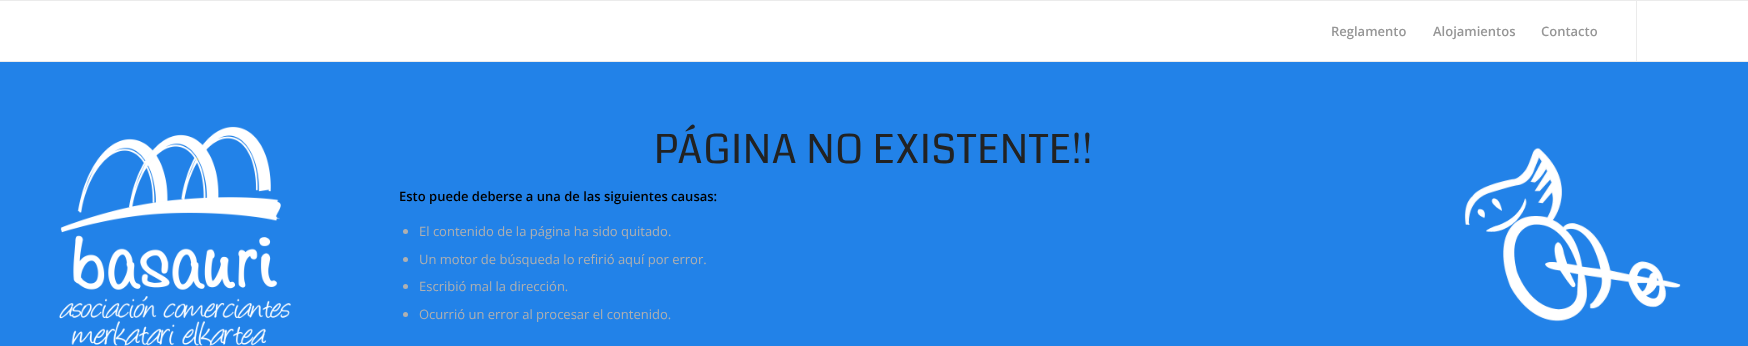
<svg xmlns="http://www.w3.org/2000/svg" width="1748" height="346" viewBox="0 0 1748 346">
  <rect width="100%" height="100%" fill="#fff"/>
  <path d="M0 0h1748v1H0z" fill="#ebebeb"/>
  <path d="M0 61h1748v1H0z" fill="#ebebeb"/>
  <path d="M1636 1h1v60H1636z" fill="#ebebeb"/>
  <path d="M0 62h1748v284H0z" fill="#2282e8"/>
  <image x="59" y="126" width="232" height="220" href="img/1.png"/>
  <circle cx="405.5" cy="231.5" r="2.5" fill="#b0b0b0"/>
  <circle cx="405.5" cy="259.5" r="2.5" fill="#b0b0b0"/>
  <circle cx="405.5" cy="286.5" r="2.5" fill="#b0b0b0"/>
  <circle cx="405.5" cy="314.5" r="2.5" fill="#b0b0b0"/>
  <image x="1464" y="147" width="217" height="175" href="img/2.png"/>
  <g font-family="Open Sans" font-size="13" font-weight="600" fill="#969696">
    <text x="1331" y="36">Reglamento</text>
    <text x="1433" y="36">Alojamientos</text>
    <text x="1541" y="36">Contacto</text>
  </g>
  <text x="654" y="163" font-family="Coda" font-size="40" letter-spacing="1" fill="#222">PÁGINA NO EXISTENTE!!</text>
  <text x="399" y="201" font-family="Open Sans" font-size="13" font-weight="600" fill="#000">Esto puede deberse a una de las siguientes causas:</text>
  <g font-family="Open Sans" font-size="13" fill="#b0b0b0">
    <text x="419" y="236">El contenido de la página ha sido quitado.</text>
    <text x="419" y="264">Un motor de búsqueda lo refirió aquí por error.</text>
    <text x="419" y="291">Escribió mal la dirección.</text>
    <text x="419" y="319">Ocurrió un error al procesar el contenido.</text>
  </g>
</svg>
